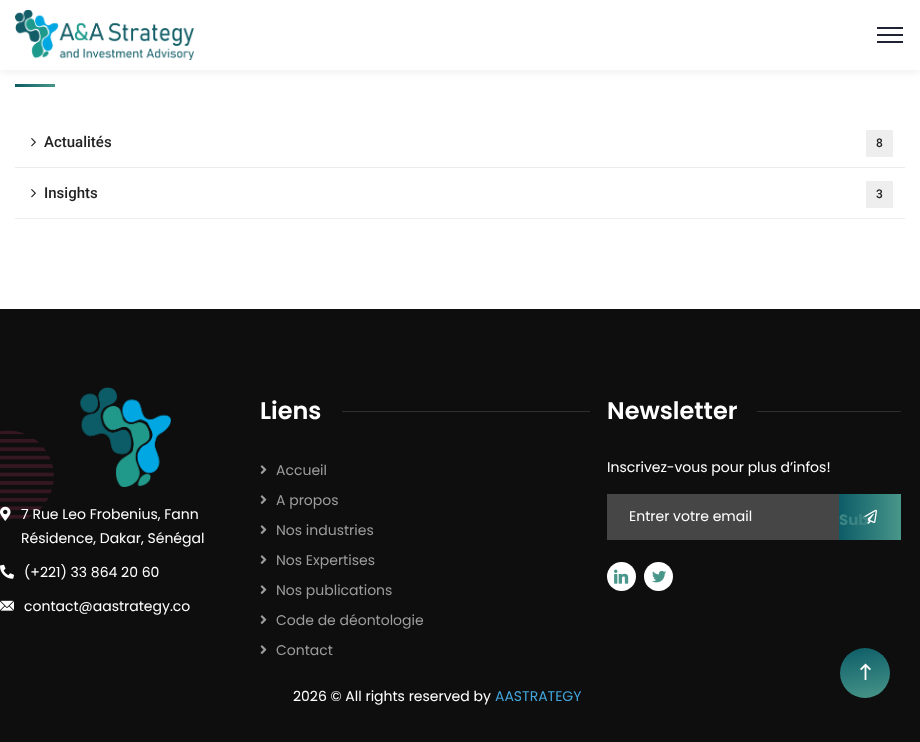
<svg xmlns="http://www.w3.org/2000/svg" width="920" height="742" viewBox="0 0 920 742">
  <defs>
    <linearGradient id="g1" gradientUnits="userSpaceOnUse" x1="15" y1="86" x2="55" y2="86"><stop offset="0" stop-color="#0c5c67"/><stop offset="1" stop-color="#49968a"/></linearGradient>
    <linearGradient id="g2" gradientUnits="userSpaceOnUse" x1="839" y1="517" x2="901" y2="517"><stop offset="0" stop-color="#0c5c67"/><stop offset="1" stop-color="#49968a"/></linearGradient>
    <linearGradient id="g3" gradientUnits="userSpaceOnUse" x1="860" y1="644" x2="870" y2="702"><stop offset="0" stop-color="#0c5c67"/><stop offset="1" stop-color="#49968a"/></linearGradient>
  </defs>
  <rect width="100%" height="100%" fill="#fff"/>
  <path d="M0 3h920v70H0z" fill="#0000000d" filter="blur(3px)"/>
  <path d="M0 0h920v70H0z" fill="#fff"/>
  <image x="15" y="10" width="179" height="50" href="img/1.png"/>
  <path d="M877 27h26v2H877z" fill="#1f2233"/>
  <path d="M877 34h26v2H877z" fill="#1f2233"/>
  <path d="M877 41h26v2H877z" fill="#1f2233"/>
  <path d="M15 84h40v3H15z" fill="url(#g1)"/>
  <path d="M15 167h890v1H15z" fill="#ececf0"/>
  <image x="31" y="138" width="5" height="9" href="img/2.png"/>
  <path d="M866 130h27v27H866z" fill="#eee"/>
  <path d="M15 218h890v1H15z" fill="#ececf0"/>
  <image x="31" y="189" width="5" height="9" href="img/2.png"/>
  <path d="M866 181h27v27H866z" fill="#eee"/>
  <path d="M0 309h920v433H0z" fill="#0e0e0e"/>
  <path d="M342 411h248v1H342z" fill="#2f2f30"/>
  <image x="260" y="465" width="7" height="9" href="img/3.png"/>
  <image x="260" y="495" width="7" height="9" href="img/3.png"/>
  <image x="260" y="525" width="7" height="9" href="img/3.png"/>
  <image x="260" y="555" width="7" height="9" href="img/3.png"/>
  <image x="260" y="585" width="7" height="9" href="img/3.png"/>
  <image x="260" y="615" width="7" height="9" href="img/3.png"/>
  <image x="260" y="645" width="7" height="9" href="img/3.png"/>
  <path d="M757 411h144v1H757z" fill="#2f2f30"/>
  <path d="M607 494h232v46H607z" fill="#464646"/>
  <path d="M839 494h62v46H839z" fill="url(#g2)"/>
  <image x="863" y="509" width="14" height="15" href="img/4.png"/>
  <circle cx="621.5" cy="576.5" r="14.5" fill="#fff"/>
  <image x="614" y="569" width="15" height="15" href="img/5.png"/>
  <circle cx="658.5" cy="576.5" r="14.5" fill="#fff"/>
  <image x="652" y="570" width="14" height="13" href="img/6.png"/>
  <image x="79" y="387" width="92" height="100" href="img/7.png"/>
  <image x="0" y="430" width="54" height="89" href="img/11.png"/>
  <image x="0" y="506" width="11" height="15" href="img/8.png"/>
  <image x="0" y="564" width="14" height="15" href="img/9.png"/>
  <image x="0" y="600" width="14" height="11" href="img/10.png"/>
  <circle cx="865" cy="673" r="25" fill="url(#g3)"/>
  <image x="860" y="663" width="11" height="17" href="img/12.png"/>
  <text x="44" y="147" font-family="Roboto" font-size="15" font-weight="500" fill="#222">Actualités</text>
  <text x="876" y="147" font-family="Roboto" font-size="12" font-weight="500" fill="#222">8</text>
  <text x="44" y="198" font-family="Roboto" font-size="15" font-weight="500" fill="#222">Insights</text>
  <text x="876" y="198" font-family="Roboto" font-size="12" font-weight="500" fill="#222">3</text>
  <text x="260" y="419" font-family="Poppins" font-size="24" font-weight="600" fill="#fff">Liens</text>
  <g font-family="Poppins" font-size="14" fill="#9d9d9d">
    <text x="276" y="475">Accueil</text>
    <text x="276" y="505">A propos</text>
    <text x="276" y="535">Nos industries</text>
    <text x="276" y="565">Nos Expertises</text>
    <text x="276" y="595">Nos publications</text>
    <text x="276" y="625">Code de déontologie</text>
    <text x="276" y="655">Contact</text>
  </g>
  <text x="607" y="419" font-family="Poppins" font-size="24" font-weight="600" fill="#fff">Newsletter</text>
  <g font-family="Poppins" font-size="14" fill="#fff">
    <text x="607" y="472">Inscrivez-vous pour plus d’infos!</text>
    <text x="629" y="521">Entrer votre email</text>
  </g>
  <text x="839" y="525" font-family="Poppins" font-size="15" font-weight="bold" fill="#3b8483">Sub</text>
  <g font-family="Poppins" font-size="14" fill="#fff">
    <text x="21" y="519">7 Rue Leo Frobenius, Fann</text>
    <text x="21" y="543">Résidence, Dakar, Sénégal</text>
    <text x="24" y="577">(+221) 33 864 20 60</text>
    <text x="24" y="611">contact@aastrategy.co</text>
    <text x="293" y="701">2026 © All rights reserved by</text>
  </g>
  <text x="495" y="701" font-family="Poppins" font-size="14" fill="#42a6dd">AASTRATEGY</text>
</svg>
